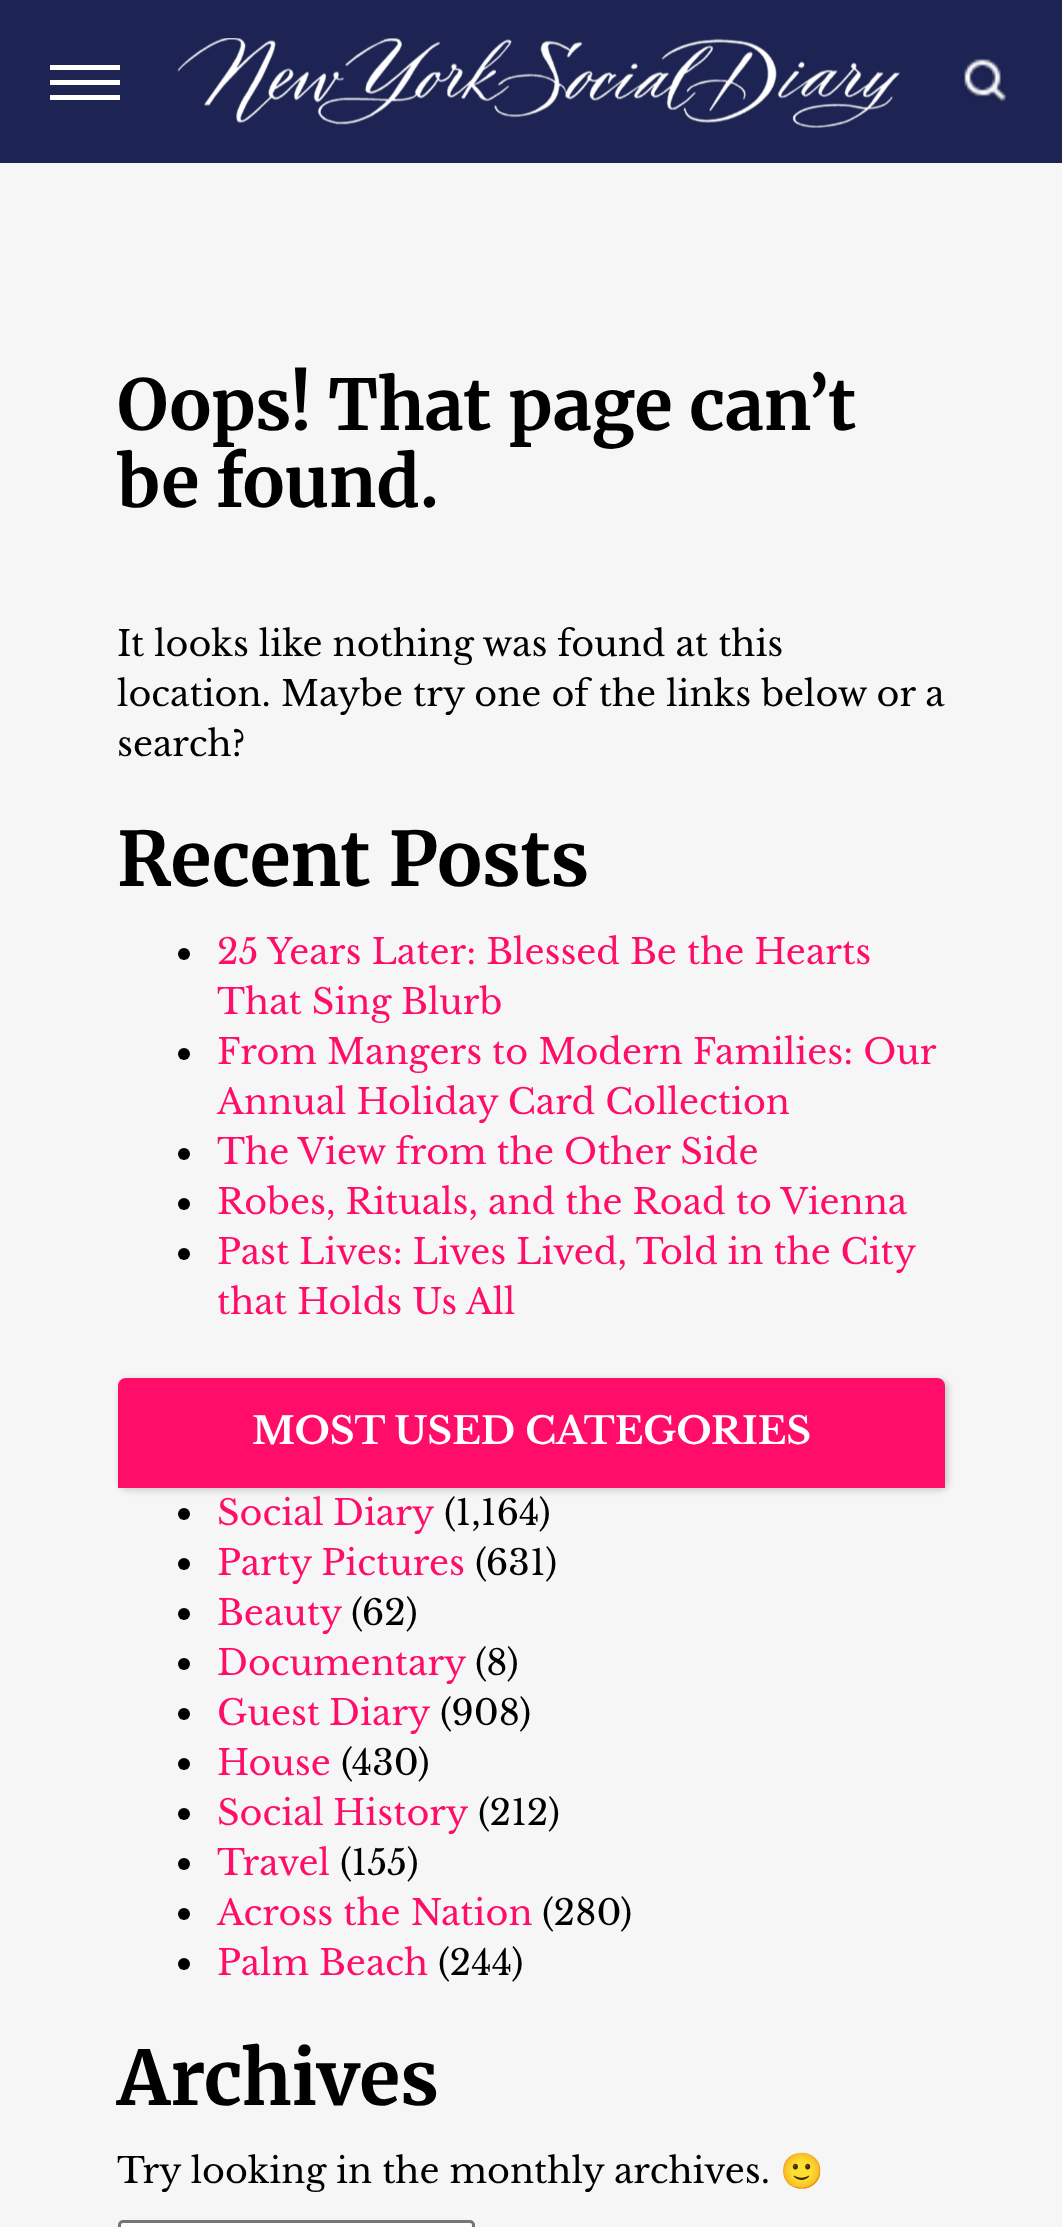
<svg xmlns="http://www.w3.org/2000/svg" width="1062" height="2227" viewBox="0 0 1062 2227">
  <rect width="100%" height="100%" fill="#f6f6f6"/>
  <path d="M0 0h1062v163H0z" fill="#1d2453"/>
  <path d="M50 65h70v5H50z" fill="#fff"/>
  <path d="M50 80h70v5H50z" fill="#fff"/>
  <path d="M50 95h70v5H50z" fill="#fff"/>
  <image x="177" y="38" width="723" height="90" href="img/1.png"/>
  <image x="964" y="58" width="42" height="44" href="img/2.png"/>
  <circle cx="184" cy="954" r="6" fill="#000"/>
  <circle cx="184" cy="1054" r="6" fill="#000"/>
  <circle cx="184" cy="1154" r="6" fill="#000"/>
  <circle cx="184" cy="1204" r="6" fill="#000"/>
  <circle cx="184" cy="1254" r="6" fill="#000"/>
  <rect x="120" y="1380" width="828" height="110" rx="8" fill="#00000030" filter="blur(3.5px)"/>
  <path d="M126 1378H937C941.5 1378 945 1381.5 945 1386V1488H118V1386C118 1381.5 121.5 1378 126 1378Z" fill="#ff0d69"/>
  <circle cx="184" cy="1514" r="6" fill="#000"/>
  <circle cx="184" cy="1564" r="6" fill="#000"/>
  <circle cx="184" cy="1614" r="6" fill="#000"/>
  <circle cx="184" cy="1664" r="6" fill="#000"/>
  <circle cx="184" cy="1714" r="6" fill="#000"/>
  <circle cx="184" cy="1764" r="6" fill="#000"/>
  <circle cx="184" cy="1814" r="6" fill="#000"/>
  <circle cx="184" cy="1864" r="6" fill="#000"/>
  <circle cx="184" cy="1914" r="6" fill="#000"/>
  <circle cx="184" cy="1964" r="6" fill="#000"/>
  <rect x="119.5" y="2221.5" width="354" height="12" rx="3.5" fill="#fff" stroke="#767676" stroke-width="3"/>
  <g font-family="Merriweather" font-size="70" font-weight="300" fill="#000">
    <text x="117" y="430">Oops! That page can’t</text>
    <text x="117" y="507">be found.</text>
  </g>
  <g font-family="Libre Baskerville" font-size="35" fill="#000">
    <text x="117" y="656">It looks like nothing was found at this</text>
    <text x="117" y="706">location. Maybe try one of the links below or a</text>
    <text x="117" y="756">search?</text>
  </g>
  <text x="117" y="886" font-family="Merriweather" font-size="75" font-weight="300" fill="#000">Recent Posts</text>
  <g font-family="Libre Baskerville" font-size="35" fill="#ff0d69">
    <text x="217" y="964">25 Years Later: Blessed Be the Hearts</text>
    <text x="217" y="1014">That Sing Blurb</text>
    <text x="217" y="1064">From Mangers to Modern Families: Our</text>
    <text x="217" y="1114">Annual Holiday Card Collection</text>
    <text x="217" y="1164">The View from the Other Side</text>
    <text x="217" y="1214">Robes, Rituals, and the Road to Vienna</text>
    <text x="217" y="1264" word-spacing="-0.25">Past Lives: Lives Lived, Told in the City</text>
    <text x="217" y="1314">that Holds Us All</text>
  </g>
  <text x="252" y="1444" font-family="Libre Baskerville" font-size="37.5" font-weight="bold" fill="#fff">MOST USED CATEGORIES</text>
  <text x="217" y="1525" word-spacing="-1" font-family="Libre Baskerville" font-size="35" fill="#ff0d69">Social Diary</text>
  <text x="444" y="1525" font-family="Libre Baskerville" font-size="35" fill="#000">(1,164)</text>
  <text x="217" y="1575" font-family="Libre Baskerville" font-size="35" fill="#ff0d69">Party Pictures</text>
  <text x="475" y="1575" font-family="Libre Baskerville" font-size="35" fill="#000">(631)</text>
  <text x="217" y="1625" font-family="Libre Baskerville" font-size="35" fill="#ff0d69">Beauty</text>
  <text x="351" y="1625" font-family="Libre Baskerville" font-size="35" fill="#000">(62)</text>
  <text x="217" y="1675" font-family="Libre Baskerville" font-size="35" fill="#ff0d69">Documentary</text>
  <text x="475" y="1675" font-family="Libre Baskerville" font-size="35" fill="#000">(8)</text>
  <text x="217" y="1725" word-spacing="-1" font-family="Libre Baskerville" font-size="35" fill="#ff0d69">Guest Diary</text>
  <text x="440" y="1725" font-family="Libre Baskerville" font-size="35" fill="#000">(908)</text>
  <text x="217" y="1775" font-family="Libre Baskerville" font-size="35" fill="#ff0d69">House</text>
  <text x="341" y="1775" font-family="Libre Baskerville" font-size="35" fill="#000">(430)</text>
  <text x="217" y="1825" word-spacing="-1" font-family="Libre Baskerville" font-size="35" fill="#ff0d69">Social History</text>
  <text x="478" y="1825" font-family="Libre Baskerville" font-size="35" fill="#000">(212)</text>
  <text x="217" y="1875" font-family="Libre Baskerville" font-size="35" fill="#ff0d69">Travel</text>
  <text x="340" y="1875" font-family="Libre Baskerville" font-size="35" fill="#000">(155)</text>
  <text x="217" y="1925" font-family="Libre Baskerville" font-size="35" fill="#ff0d69">Across the Nation</text>
  <text x="542" y="1925" font-family="Libre Baskerville" font-size="35" fill="#000">(280)</text>
  <text x="217" y="1975" font-family="Libre Baskerville" font-size="35" fill="#ff0d69">Palm Beach</text>
  <text x="438" y="1975" font-family="Libre Baskerville" font-size="35" fill="#000">(244)</text>
  <text x="117" y="2105" font-family="Merriweather" font-size="75" font-weight="300" fill="#000">Archives</text>
  <text x="117" y="2183" font-family="Libre Baskerville" font-size="35" fill="#000">Try looking in the monthly archives.</text>
  <text x="780" y="2183" font-family="Noto Color Emoji" font-size="35" fill="#000">🙂</text>
</svg>
